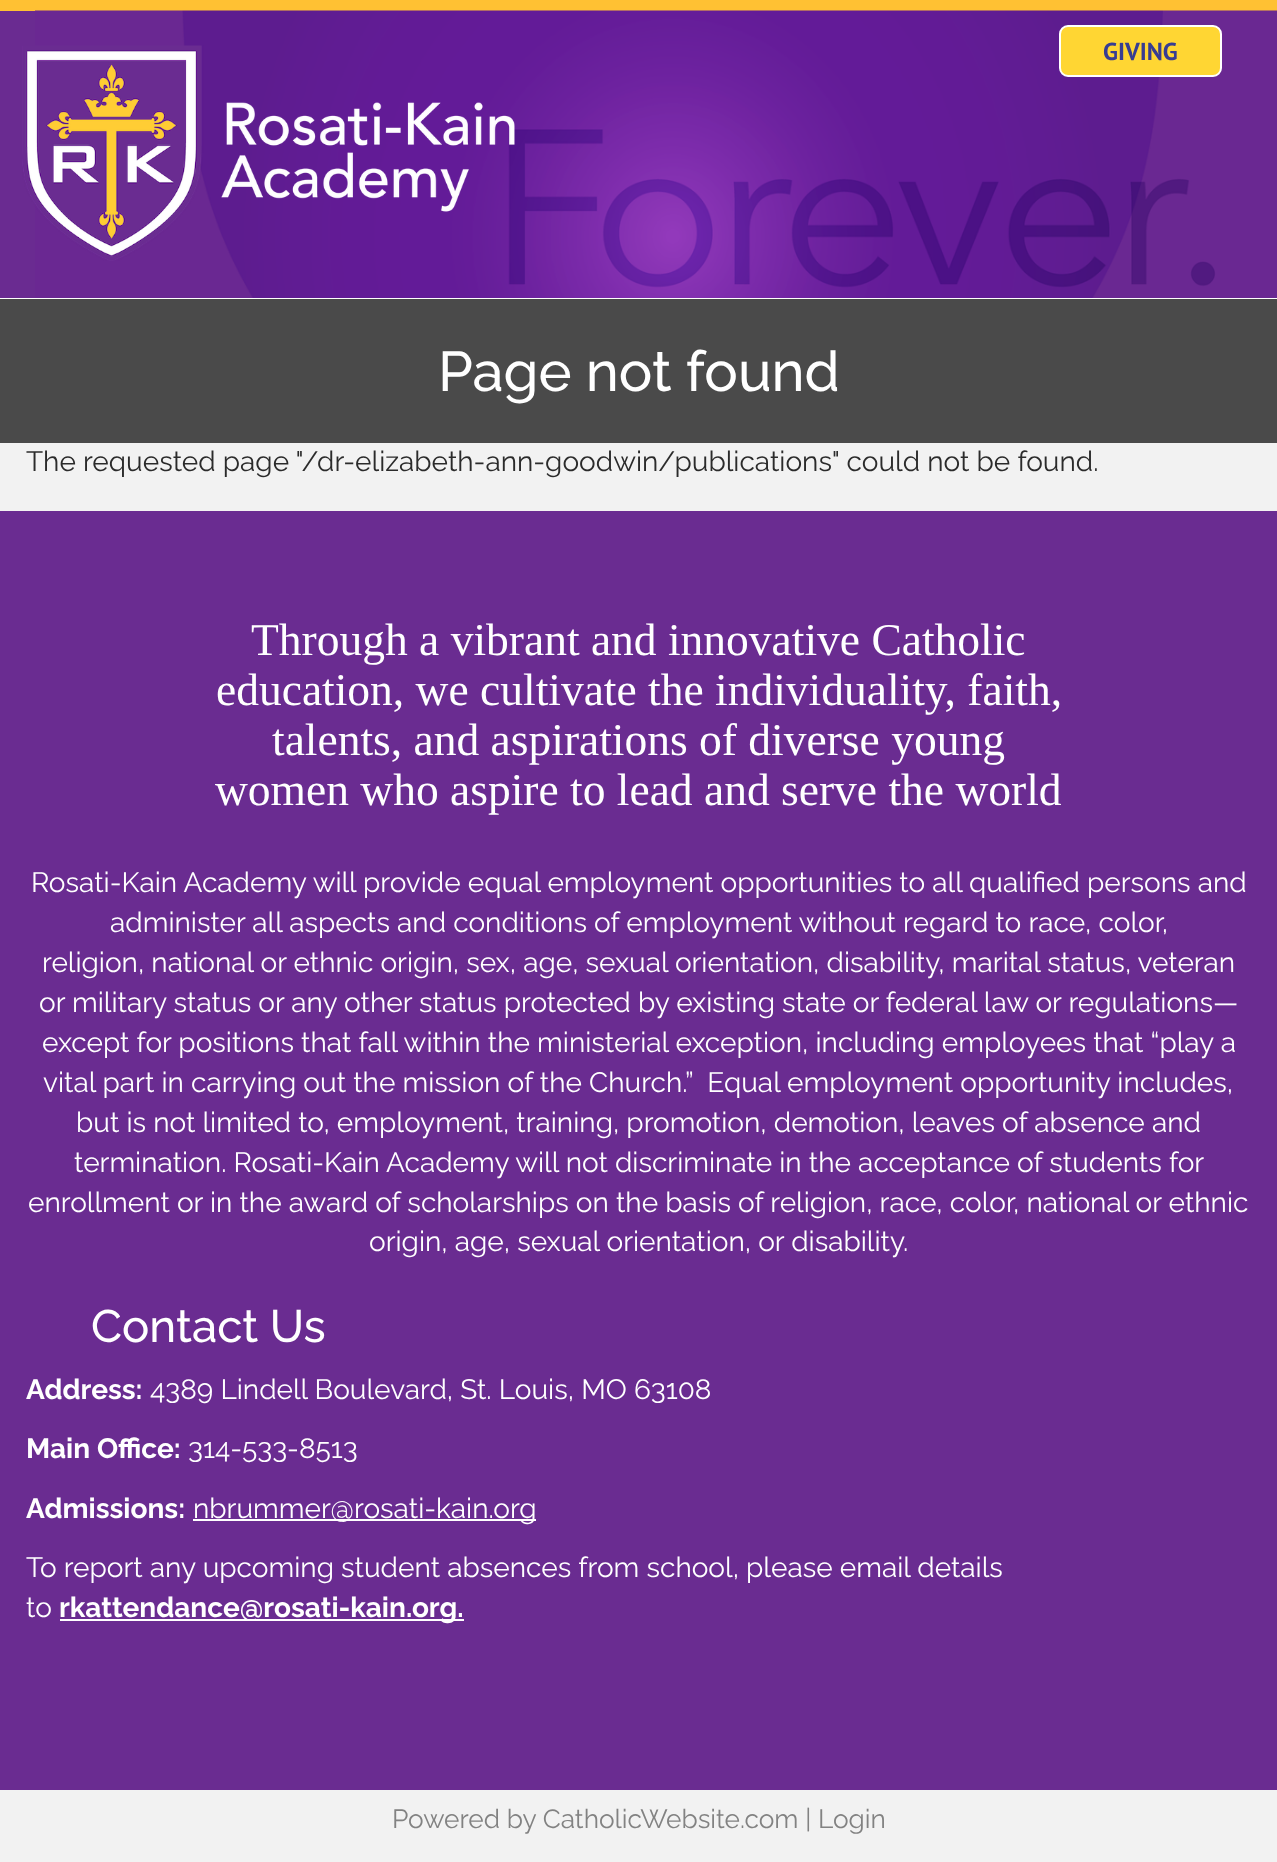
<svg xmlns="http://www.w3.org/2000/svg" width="1277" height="1862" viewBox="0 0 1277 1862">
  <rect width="100%" height="100%" fill="#f2f2f2"/>
  <path d="M0 0h1277v11H0z" fill="#ffc133"/>
  <path d="M0 11h35v287H0z" fill="#6a2b91"/>
  <image x="35" y="10" width="1242" height="288" href="img/1.png"/>
  <path d="M0 298h1277v1H0z" fill="#fff"/>
  <image x="22" y="45" width="493" height="216" href="img/2.png"/>
  <rect x="1060" y="26" width="161" height="50" rx="8" fill="#ffd633" stroke="#fff" stroke-width="2"/>
  <path d="M0 299h1277v144H0z" fill="#4a4a4a"/>
  <path d="M0 511h1277v1279H0z" fill="#6a2c91"/>
  <path d="M193 1519h343v2H193z" fill="#fff"/>
  <path d="M60 1619h404v2H60z" fill="#fff"/>
  <text x="1103" y="60" font-family="PT Sans" font-size="24.5" font-weight="bold" fill="#383d92">GIVING</text>
  <text x="438" y="391" font-family="Raleway" font-size="56" font-weight="500" fill="#fff">Page not found</text>
  <text x="26" y="471" font-family="Raleway" font-size="28" fill="#2b2b2b">The requested page "/dr-elizabeth-ann-goodwin/publications" could not be found.</text>
  <g font-family="Liberation Serif" font-size="45.5" fill="#fff">
    <text x="251" y="655">Through a vibrant and innovative Catholic</text>
    <text x="216" y="705">education, we cultivate the individuality, faith,</text>
    <text x="272" y="755">talents, and aspirations of diverse young</text>
    <text x="215" y="805">women who aspire to lead and serve the world</text>
  </g>
  <g font-family="Raleway" font-size="28" fill="#fff">
    <text x="31" y="892">Rosati-Kain Academy will provide equal employment opportunities to all qualified persons and</text>
    <text x="110" y="932">administer all aspects and conditions of employment without regard to race, color,</text>
    <text x="42" y="972">religion, national or ethnic origin, sex, age, sexual orientation, disability, marital status, veteran</text>
    <text x="39" y="1012">or military status or any other status protected by existing state or federal law or regulations—</text>
    <text x="42" y="1052">except for positions that fall within the ministerial exception, including employees that “play a</text>
    <text x="43" y="1092" xml:space="preserve">vital part in carrying out the mission of the Church.”  Equal employment opportunity includes,</text>
    <text x="76" y="1132">but is not limited to, employment, training, promotion, demotion, leaves of absence and</text>
    <text x="74" y="1172">termination. Rosati-Kain Academy will not discriminate in the acceptance of students for</text>
    <text x="28" y="1212">enrollment or in the award of scholarships on the basis of religion, race, color, national or ethnic</text>
    <text x="369" y="1251">origin, age, sexual orientation, or disability.</text>
  </g>
  <text x="91" y="1342" font-family="Raleway" font-size="45.5" font-weight="500" fill="#fff">Contact Us</text>
  <text x="26" y="1399" font-family="Raleway" font-size="28" font-weight="bold" fill="#fff">Address:</text>
  <text x="150" y="1399" font-family="Raleway" font-size="28" fill="#fff">4389 Lindell Boulevard, St. Louis, MO 63108</text>
  <text x="26" y="1458" font-family="Raleway" font-size="28" font-weight="bold" fill="#fff">Main Office:</text>
  <text x="188" y="1458" font-family="Raleway" font-size="28" fill="#fff">314-533-8513</text>
  <text x="26" y="1518" font-family="Raleway" font-size="28" font-weight="bold" fill="#fff">Admissions:</text>
  <g font-family="Raleway" font-size="28" fill="#fff">
    <text x="193" y="1518">nbrummer@rosati-kain.org</text>
    <text x="26" y="1577">To report any upcoming student absences from school, please email details</text>
    <text x="26" y="1617">to</text>
  </g>
  <text x="59" y="1617" font-family="Raleway" font-size="28" font-weight="bold" fill="#fff">rkattendance@rosati-kain.org.</text>
  <text x="392" y="1828" font-family="Raleway" font-size="26.25" fill="#828282">Powered by CatholicWebsite.com | Login</text>
</svg>
